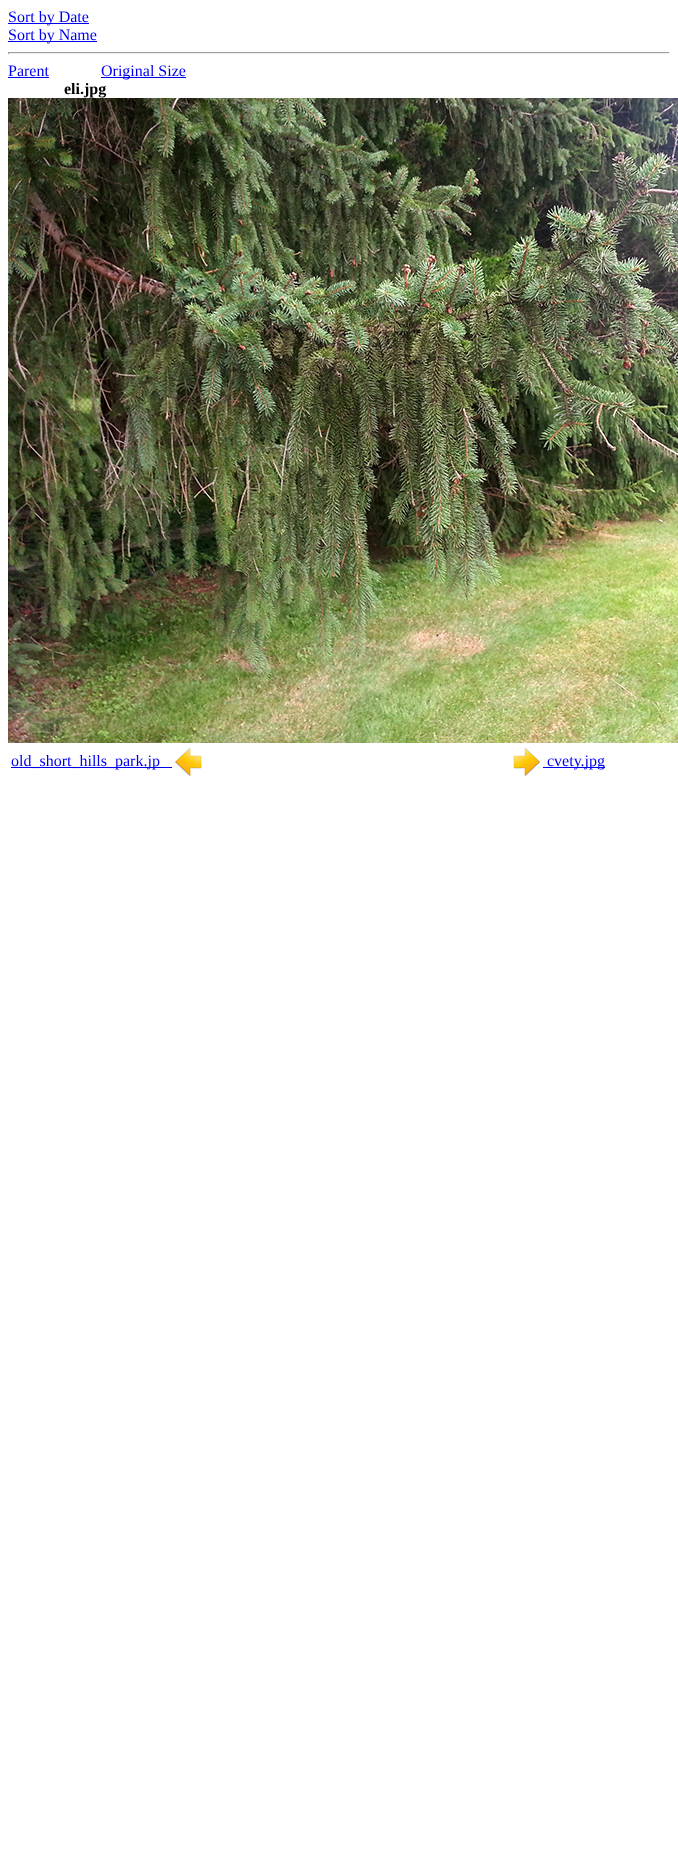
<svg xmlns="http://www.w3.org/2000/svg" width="678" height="1874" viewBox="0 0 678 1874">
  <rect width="100%" height="100%" fill="#fff"/>
  <path d="M8 23h81v1H8z" fill="#00e"/>
  <path d="M8 41h89v1H8z" fill="#00e"/>
  <path d="M8 52h662v1H8z" fill="#9f9f9f"/>
  <path d="M669 52h1v2H669z" fill="#eee"/>
  <path d="M8 53h662v1H8z" fill="#eee"/>
  <path d="M8 52h1v2H8z" fill="#9f9f9f"/>
  <path d="M8 77h41v1H8z" fill="#00e"/>
  <path d="M101 77h85v1H101z" fill="#00e"/>
  <image x="8" y="98" width="670" height="645" href="img/1.png"/>
  <path d="M11 767h161v1H11z" fill="#00e"/>
  <image x="175" y="747" width="27" height="29" href="img/2.png"/>
  <image x="513" y="747" width="28" height="29" href="img/3.png"/>
  <path d="M543 767h62v1H543z" fill="#00e"/>
  <g font-family="Liberation Serif" font-size="16" fill="#00e">
    <text x="8" y="22">Sort by Date</text>
    <text x="8" y="40">Sort by Name</text>
    <text x="8" y="76">Parent</text>
    <text x="101" y="76">Original Size</text>
  </g>
  <text x="64" y="94" font-family="Liberation Serif" font-size="16" font-weight="bold" fill="#000">eli.jpg</text>
  <g font-family="Liberation Serif" font-size="16" fill="#00e">
    <text x="11" y="766">old_short_hills_park.jp</text>
    <text x="547" y="766">cvety.jpg</text>
  </g>
</svg>
